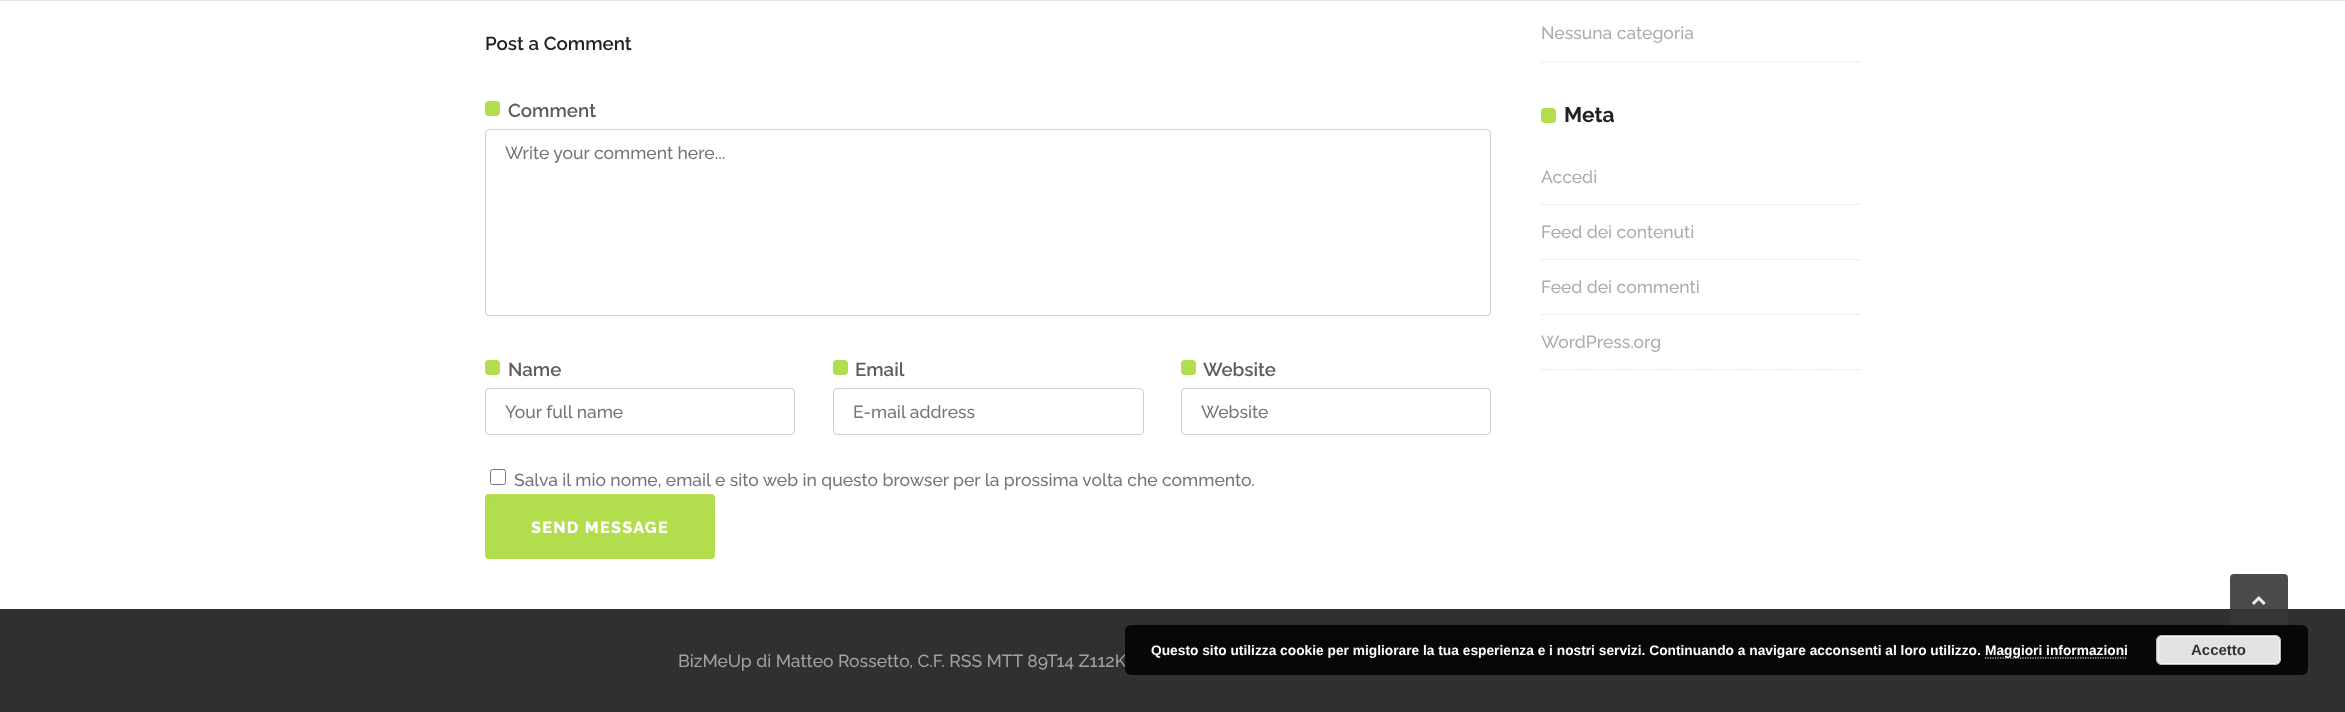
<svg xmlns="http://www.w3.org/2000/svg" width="2345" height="712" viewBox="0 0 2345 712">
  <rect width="100%" height="100%" fill="#fff"/>
  <path d="M0 0h2345v1H0z" fill="#e7e7e7"/>
  <rect x="485" y="101" width="15" height="15" rx="4" fill="#b2dd4c"/>
  <rect x="485.5" y="129.5" width="1005" height="186" rx="3.5" fill="none" stroke="#cfcfcf"/>
  <rect x="485" y="360" width="15" height="15" rx="4" fill="#b2dd4c"/>
  <rect x="485.5" y="388.5" width="309" height="46" rx="3.5" fill="none" stroke="#cfcfcf"/>
  <rect x="833" y="360" width="15" height="15" rx="4" fill="#b2dd4c"/>
  <rect x="833.5" y="388.5" width="310" height="46" rx="3.5" fill="none" stroke="#cfcfcf"/>
  <rect x="1181" y="360" width="15" height="15" rx="4" fill="#b2dd4c"/>
  <rect x="1181.5" y="388.5" width="309" height="46" rx="3.5" fill="none" stroke="#cfcfcf"/>
  <rect x="490.5" y="469.5" width="15" height="15" rx="2" fill="none" stroke="#767676"/>
  <rect x="486.5" y="495.5" width="227" height="62" rx="2.5" fill="#b2dd4c" stroke="#b2dd4c" stroke-width="3"/>
  <path d="M1541 62H1860" fill="none" stroke="#dfdfdf" stroke-width="1.2" stroke-dasharray="1.25 1.25"/>
  <rect x="1541" y="108" width="15" height="15" rx="4" fill="#b2dd4c"/>
  <path d="M1541 204.5H1860" fill="none" stroke="#dfdfdf" stroke-width="1.2" stroke-dasharray="1.25 1.25"/>
  <path d="M1541 259.5H1860" fill="none" stroke="#dfdfdf" stroke-width="1.2" stroke-dasharray="1.25 1.25"/>
  <path d="M1541 314.5H1860" fill="none" stroke="#dfdfdf" stroke-width="1.2" stroke-dasharray="1.25 1.25"/>
  <path d="M1541 369.5H1860" fill="none" stroke="#dfdfdf" stroke-width="1.2" stroke-dasharray="1.25 1.25"/>
  <path d="M0 609h2345v103H0z" fill="#303030"/>
  <rect x="2230" y="574" width="58" height="57" rx="4" fill="#373737e6"/>
  <image x="2252" y="596" width="14" height="9" href="img/1.png"/>
  <text x="485" y="50" font-family="Raleway" font-size="18.75" font-weight="600" fill="#222">Post a Comment</text>
  <text x="508" y="117" font-family="Raleway" font-size="18.75" font-weight="600" fill="#5d5d5d">Comment</text>
  <text x="505" y="159" font-family="Raleway" font-size="17.5" font-weight="500" fill="#757575">Write your comment here...</text>
  <text x="508" y="376" font-family="Raleway" font-size="18.75" font-weight="600" fill="#5d5d5d">Name</text>
  <text x="505" y="418" font-family="Raleway" font-size="17.5" font-weight="500" fill="#757575">Your full name</text>
  <text x="855" y="376" font-family="Raleway" font-size="18.75" font-weight="600" fill="#5d5d5d">Email</text>
  <text x="853" y="418" font-family="Raleway" font-size="17.5" font-weight="500" fill="#757575">E-mail address</text>
  <text x="1203" y="376" font-family="Raleway" font-size="18.75" font-weight="600" fill="#5d5d5d">Website</text>
  <g font-family="Raleway" font-size="17.5" font-weight="500" fill="#757575">
    <text x="1201" y="418">Website</text>
    <text x="514" y="486">Salva il mio nome, email e sito web in questo browser per la prossima volta che commento.</text>
  </g>
  <text x="531" y="533" font-family="Raleway" font-size="16.25" font-weight="800" letter-spacing="1.25" fill="#fff">SEND MESSAGE</text>
  <text x="1541" y="39" font-family="Raleway" font-size="17.5" font-weight="500" fill="#acacac">Nessuna categoria</text>
  <text x="1564" y="122" font-family="Raleway" font-size="21" font-weight="bold" fill="#222">Meta</text>
  <g font-family="Raleway" font-size="17.5" font-weight="500" fill="#acacac">
    <text x="1541" y="183">Accedi</text>
    <text x="1541" y="238">Feed dei contenuti</text>
    <text x="1541" y="293">Feed dei commenti</text>
    <text x="1541" y="348">WordPress.org</text>
  </g>
  <text x="678" y="667" font-family="Raleway" font-size="17.5" font-weight="500" fill="#a2a2a2">BizMeUp di Matteo Rossetto, C.F. RSS MTT 89T14 Z112K</text>
  <rect x="1125" y="625" width="1183" height="50" rx="6" fill="#000000d9"/>
  <text x="1151" y="655" font-family="Liberation Sans" font-size="13.75" font-weight="bold" fill="#fff">Questo sito utilizza cookie per migliorare la tua esperienza e i nostri servizi. Continuando a navigare acconsenti al loro utilizzo.</text>
  <path d="M1985 658H2127.5" fill="none" stroke="#fff" stroke-width="1.2" stroke-dasharray="1.25 1.25"/>
  <text x="1985" y="655" font-family="Liberation Sans" font-size="13.75" font-weight="bold" fill="#fff">Maggiori informazioni</text>
  <rect x="2156" y="635" width="125" height="30" rx="6" fill="#e3e3e3"/>
  <rect x="2158.5" y="636.5" width="121" height="27" rx="4.5" fill="none" stroke="#f6f6f6"/>
  <rect x="2156.5" y="635.5" width="124" height="29" rx="5.5" fill="none" stroke="#bbb"/>
  <text x="2191" y="655" font-family="Liberation Sans" font-size="15" font-weight="bold" fill="#333">Accetto</text>
</svg>
